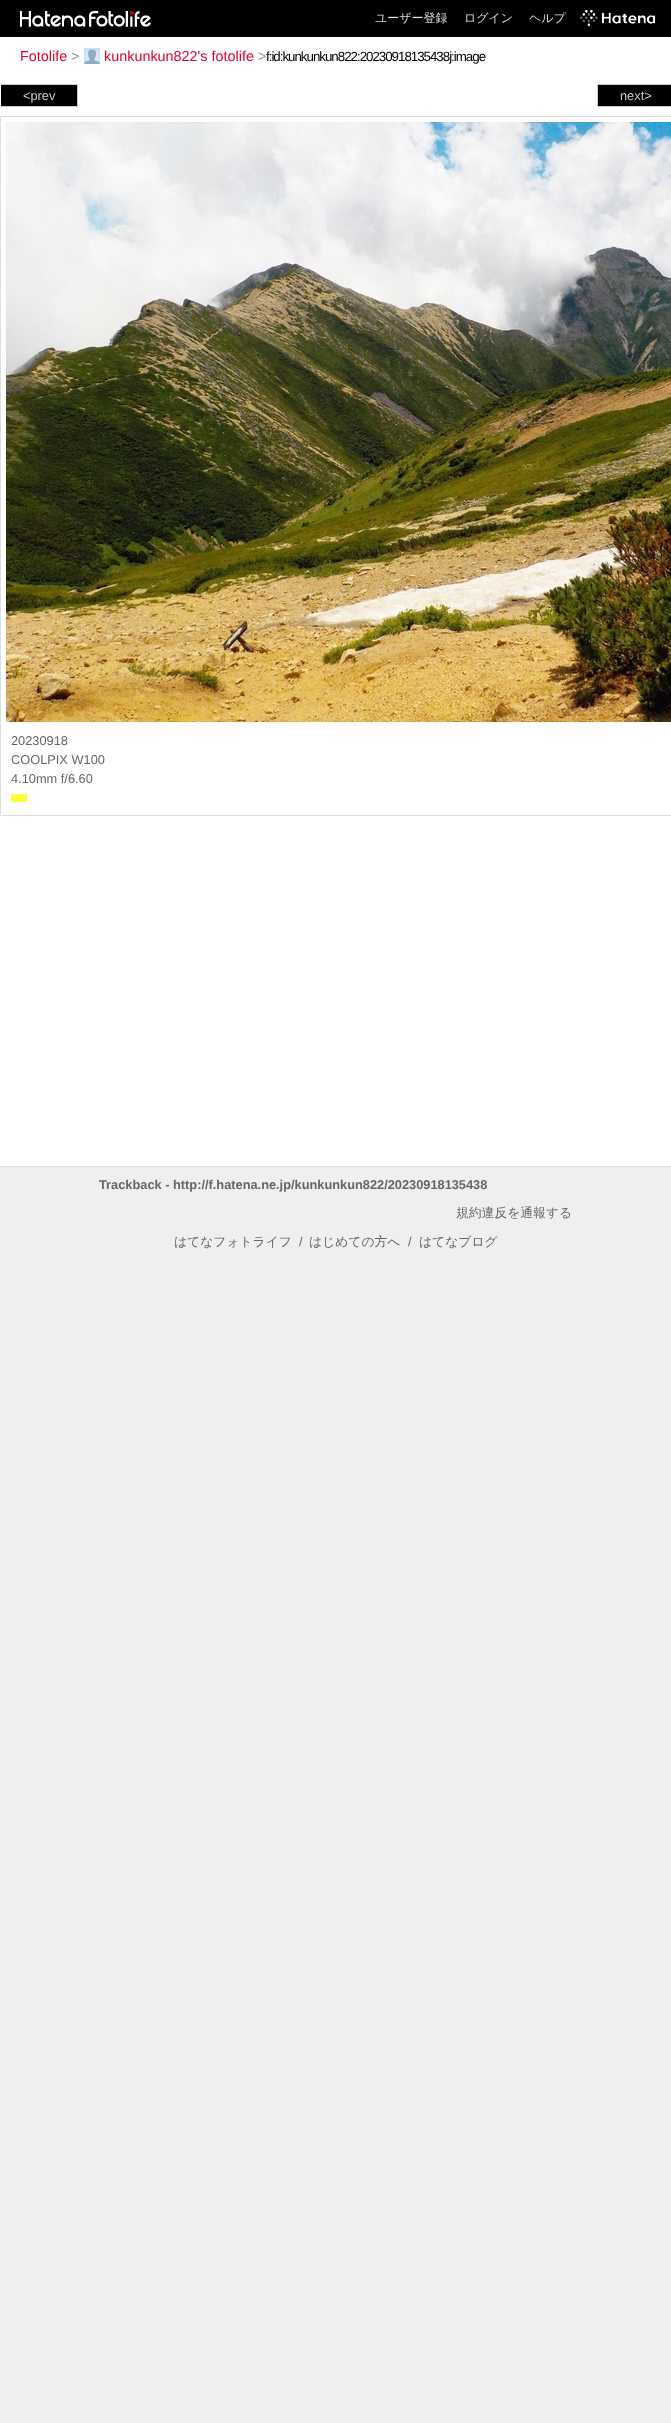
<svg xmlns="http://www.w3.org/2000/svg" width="671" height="2423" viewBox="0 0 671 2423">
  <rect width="100%" height="100%" fill="#efefef"/>
  <path d="M0 0h671v37H0z" fill="#000"/>
  <image x="20" y="11" width="66" height="16" href="img/1.png"/>
  <image x="89" y="11" width="62" height="16" href="img/2.png"/>
  <image x="580" y="10" width="75" height="16" href="img/3.png"/>
  <path d="M0 37h671v1129H0z" fill="#fff"/>
  <image x="84" y="48" width="16" height="16" href="img/4.png"/>
  <path d="M0 1166h671v1H0z" fill="#dedede"/>
  <path d="M1 85h76v21H1z" fill="#000"/>
  <path d="M1 84h77v1H1z" fill="#ccc"/>
  <path d="M77 84h1v23H77z" fill="#ccc"/>
  <path d="M1 106h77v1H1z" fill="#ccc"/>
  <path d="M598 85h73v21H598z" fill="#000"/>
  <path d="M597 84h74v1H597z" fill="#ccc"/>
  <path d="M597 106h74v1H597z" fill="#ccc"/>
  <path d="M597 84h1v23H597z" fill="#ccc"/>
  <path d="M0.5 116.5h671v699H0.5z" fill="none" stroke="#dedede"/>
  <image x="6" y="122" width="665" height="600" href="img/5.png"/>
  <path d="M11 794h16v8H11z" fill="#ffff40"/>
  <g font-family="WenQuanYi Zen Hei" font-size="12" font-weight="500" fill="#ddd">
    <text x="375" y="22">ユーザー登録</text>
    <text x="464" y="22">ログイン</text>
    <text x="529" y="22">ヘルプ</text>
  </g>
  <text x="20" y="61" font-family="Liberation Sans" font-size="14.4" fill="#de002f">Fotolife</text>
  <text x="71" y="61" font-family="Liberation Sans" font-size="14.4" fill="#999">&gt;</text>
  <text x="104" y="61" font-family="Liberation Sans" font-size="14.4" fill="#de002f">kunkunkun822's fotolife</text>
  <text x="258" y="61" font-family="Liberation Sans" font-size="14.4" fill="#999">&gt;</text>
  <text x="266" y="61" font-family="Liberation Sans" font-size="13.3" letter-spacing="-1" fill="#000">f:id:kunkunkun822:20230918135438j:image</text>
  <g font-family="Liberation Sans" font-size="12.8" fill="#ccc">
    <text x="23" y="100">&lt;prev</text>
    <text x="620" y="100">next&gt;</text>
  </g>
  <g font-family="Liberation Sans" font-size="12.8" fill="#666">
    <text x="11" y="745">20230918</text>
    <text x="11" y="764">COOLPIX W100</text>
    <text x="11" y="783">4.10mm f/6.60</text>
  </g>
  <text x="99" y="1189" font-family="Liberation Sans" font-size="12.8" font-weight="bold" fill="#666">Trackback - http://f.hatena.ne.jp/kunkunkun822/20230918135438</text>
  <g font-family="WenQuanYi Zen Hei" font-size="12.8" font-weight="500" fill="#666">
    <text x="456" y="1217">規約違反を通報する</text>
    <text x="174" y="1246">はてなフォトライフ</text>
  </g>
  <text x="299" y="1246" font-family="Liberation Sans" font-size="12.8" fill="#666">/</text>
  <text x="309" y="1246" font-family="WenQuanYi Zen Hei" font-size="12.8" font-weight="500" fill="#666">はじめての方へ</text>
  <text x="408" y="1246" font-family="Liberation Sans" font-size="12.8" fill="#666">/</text>
  <text x="419" y="1246" font-family="WenQuanYi Zen Hei" font-size="12.8" font-weight="500" fill="#666">はてなブログ</text>
</svg>
